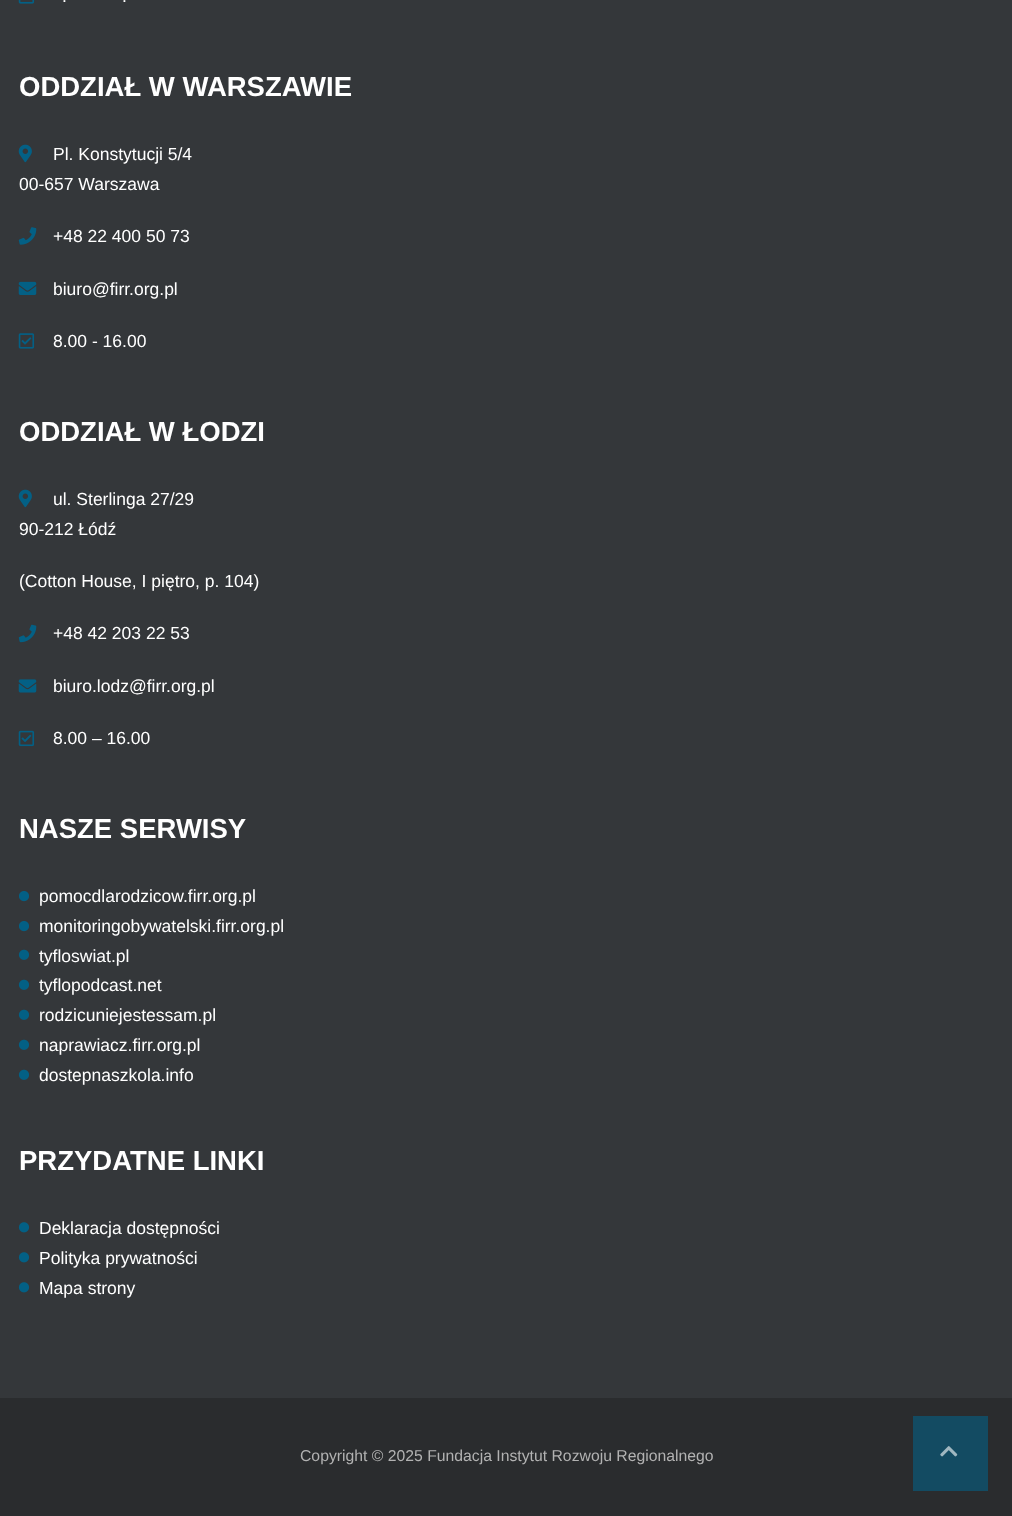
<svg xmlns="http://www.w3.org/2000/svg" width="1012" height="1516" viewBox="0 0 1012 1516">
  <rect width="100%" height="100%" fill="#34373a"/>
  <image x="18" y="0" width="17" height="4" href="img/1.png"/>
  <image x="18" y="144" width="14" height="19" href="img/2.png"/>
  <image x="18" y="227" width="19" height="18" href="img/3.png"/>
  <image x="18" y="281" width="19" height="14" href="img/4.png"/>
  <image x="18" y="333" width="17" height="16" href="img/5.png"/>
  <image x="18" y="489" width="14" height="19" href="img/2.png"/>
  <image x="18" y="624" width="19" height="19" href="img/6.png"/>
  <image x="18" y="679" width="19" height="14" href="img/7.png"/>
  <image x="18" y="730" width="17" height="17" href="img/8.png"/>
  <image x="19" y="891" width="10" height="11" href="img/9.png"/>
  <image x="19" y="921" width="10" height="11" href="img/9.png"/>
  <image x="18" y="949" width="12" height="11" href="img/10.png"/>
  <image x="18" y="979" width="12" height="11" href="img/10.png"/>
  <image x="18" y="1009" width="12" height="11" href="img/10.png"/>
  <image x="18" y="1039" width="12" height="11" href="img/10.png"/>
  <image x="18" y="1069" width="12" height="11" href="img/10.png"/>
  <image x="18" y="1222" width="12" height="11" href="img/11.png"/>
  <image x="18" y="1252" width="12" height="11" href="img/11.png"/>
  <image x="18" y="1282" width="12" height="11" href="img/11.png"/>
  <path d="M0 1398h1012v118H0z" fill="#2a2c2e"/>
  <path d="M913 1416h75v75H913z" fill="#134b62"/>
  <image x="940" y="1446" width="18" height="11" href="img/12.png"/>
  <g font-family="Liberation Sans" font-size="17.5" fill="#fff">
    <text x="62" y="2">.</text>
    <text x="122" y="2">.</text>
  </g>
  <text x="19" y="96" font-family="Liberation Sans" font-size="27.5" font-weight="bold" fill="#fff">ODDZIAŁ W WARSZAWIE</text>
  <g font-family="Liberation Sans" font-size="17.5" fill="#fff">
    <text x="53" y="160">Pl. Konstytucji 5/4</text>
    <text x="19" y="190">00-657 Warszawa</text>
    <text x="53" y="242">+48 22 400 50 73</text>
    <text x="53" y="295">biuro@firr.org.pl</text>
    <text x="53" y="347">8.00 - 16.00</text>
  </g>
  <text x="19" y="441" font-family="Liberation Sans" font-size="27.5" font-weight="bold" fill="#fff">ODDZIAŁ W ŁODZI</text>
  <g font-family="Liberation Sans" font-size="17.5" fill="#fff">
    <text x="53" y="505">ul. Sterlinga 27/29</text>
    <text x="19" y="535">90-212 Łódź</text>
    <text x="19" y="587">(Cotton House, I piętro, p. 104)</text>
    <text x="53" y="639">+48 42 203 22 53</text>
    <text x="53" y="692">biuro.lodz@firr.org.pl</text>
    <text x="53" y="744">8.00 – 16.00</text>
  </g>
  <text x="19" y="838" font-family="Liberation Sans" font-size="27.5" font-weight="bold" fill="#fff">NASZE SERWISY</text>
  <g font-family="Liberation Sans" font-size="17.5" fill="#fff">
    <text x="39" y="902">pomocdlarodzicow.firr.org.pl</text>
    <text x="39" y="932">monitoringobywatelski.firr.org.pl</text>
    <text x="39" y="962">tyfloswiat.pl</text>
    <text x="39" y="991">tyflopodcast.net</text>
    <text x="39" y="1021">rodzicuniejestessam.pl</text>
    <text x="39" y="1051">naprawiacz.firr.org.pl</text>
    <text x="39" y="1081">dostepnaszkola.info</text>
  </g>
  <text x="19" y="1170" font-family="Liberation Sans" font-size="27.5" font-weight="bold" fill="#fff">PRZYDATNE LINKI</text>
  <g font-family="Liberation Sans" font-size="17.5" fill="#fff">
    <text x="39" y="1234">Deklaracja dostępności</text>
    <text x="39" y="1264">Polityka prywatności</text>
    <text x="39" y="1294">Mapa strony</text>
  </g>
  <text x="300" y="1461" font-family="Liberation Sans" font-size="15.75" fill="#b2b2b2">Copyright © 2025 Fundacja Instytut Rozwoju Regionalnego</text>
</svg>
